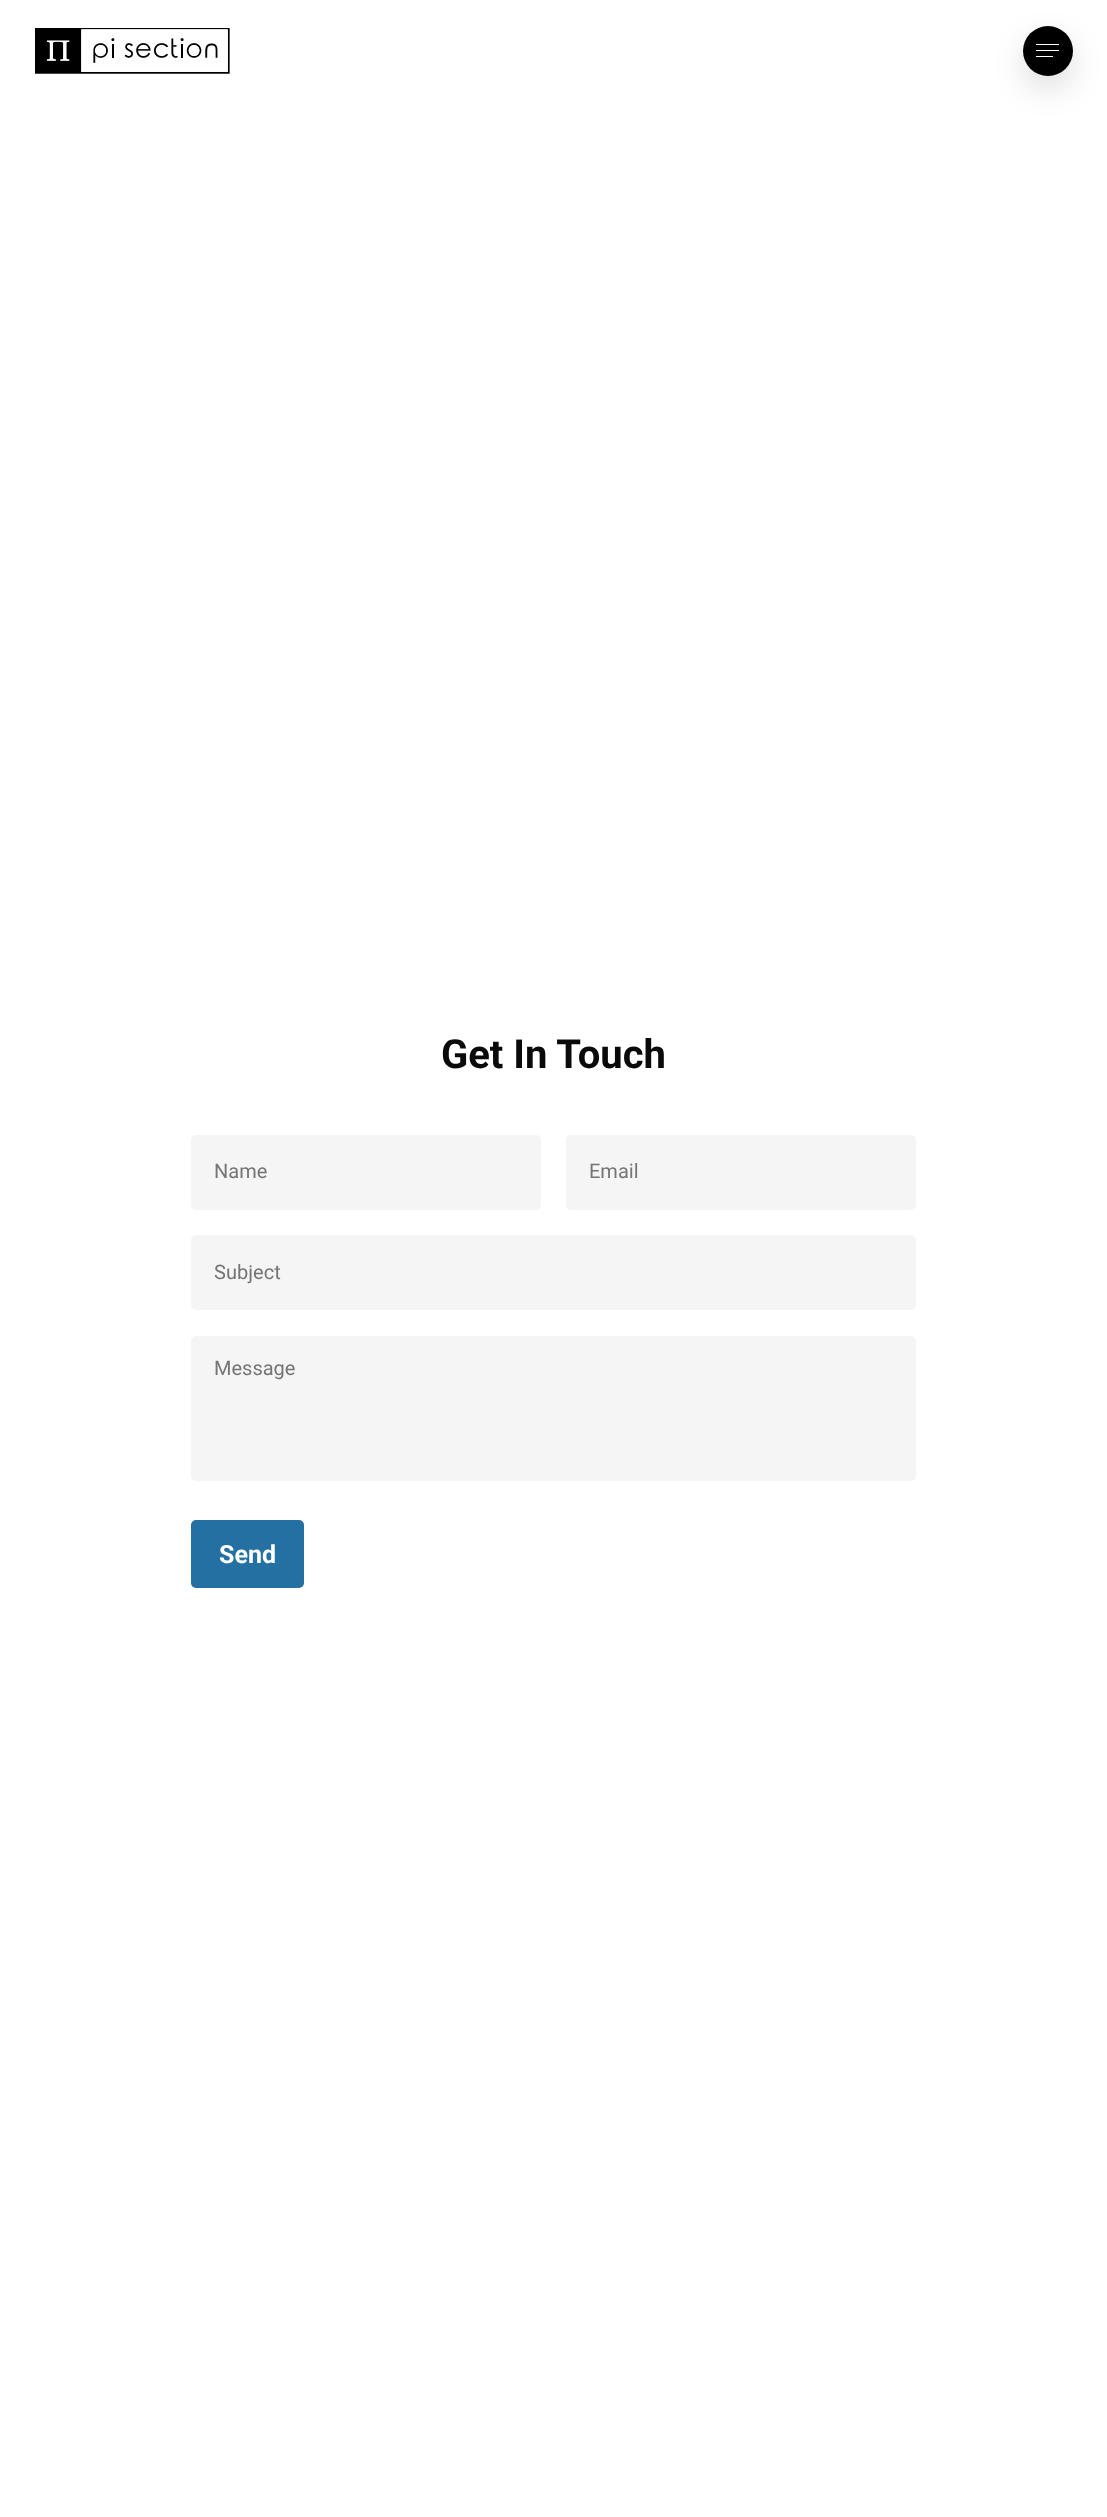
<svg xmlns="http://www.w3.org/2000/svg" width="1107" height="2517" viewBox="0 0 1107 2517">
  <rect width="100%" height="100%" fill="#fff"/>
  <image x="35" y="28" width="195" height="46" href="img/1.png"/>
  <rect x="1023" y="39" width="50" height="50" rx="25" fill="#00000021" filter="blur(15.5px)"/>
  <circle cx="1048" cy="51" r="25" fill="#000"/>
  <path d="M1036 44h23v1H1036z" fill="#fff"/>
  <path d="M1036 56h17v1H1036z" fill="#fff"/>
  <path d="M1036 50h23v1H1036z" fill="#fff"/>
  <rect x="191" y="1135" width="350" height="75" rx="5" fill="#f5f5f5"/>
  <rect x="566" y="1135" width="350" height="75" rx="5" fill="#f5f5f5"/>
  <rect x="191" y="1235" width="725" height="75" rx="5" fill="#f5f5f5"/>
  <rect x="191" y="1336" width="725" height="145" rx="5" fill="#f5f5f5"/>
  <rect x="191" y="1520" width="113" height="68" rx="5" fill="#2570a3"/>
  <text x="441" y="1068" font-family="Roboto" font-size="40" font-weight="bold" fill="#0a0a0a">Get In Touch</text>
  <g font-family="Heebo" font-size="20" fill="#757575">
    <text x="214" y="1178">Name</text>
    <text x="589" y="1178">Email</text>
    <text x="214" y="1279">Subject</text>
    <text x="214" y="1375">Message</text>
  </g>
  <text x="219" y="1563" font-family="Roboto" font-size="25" font-weight="bold" fill="#fff">Send</text>
</svg>
